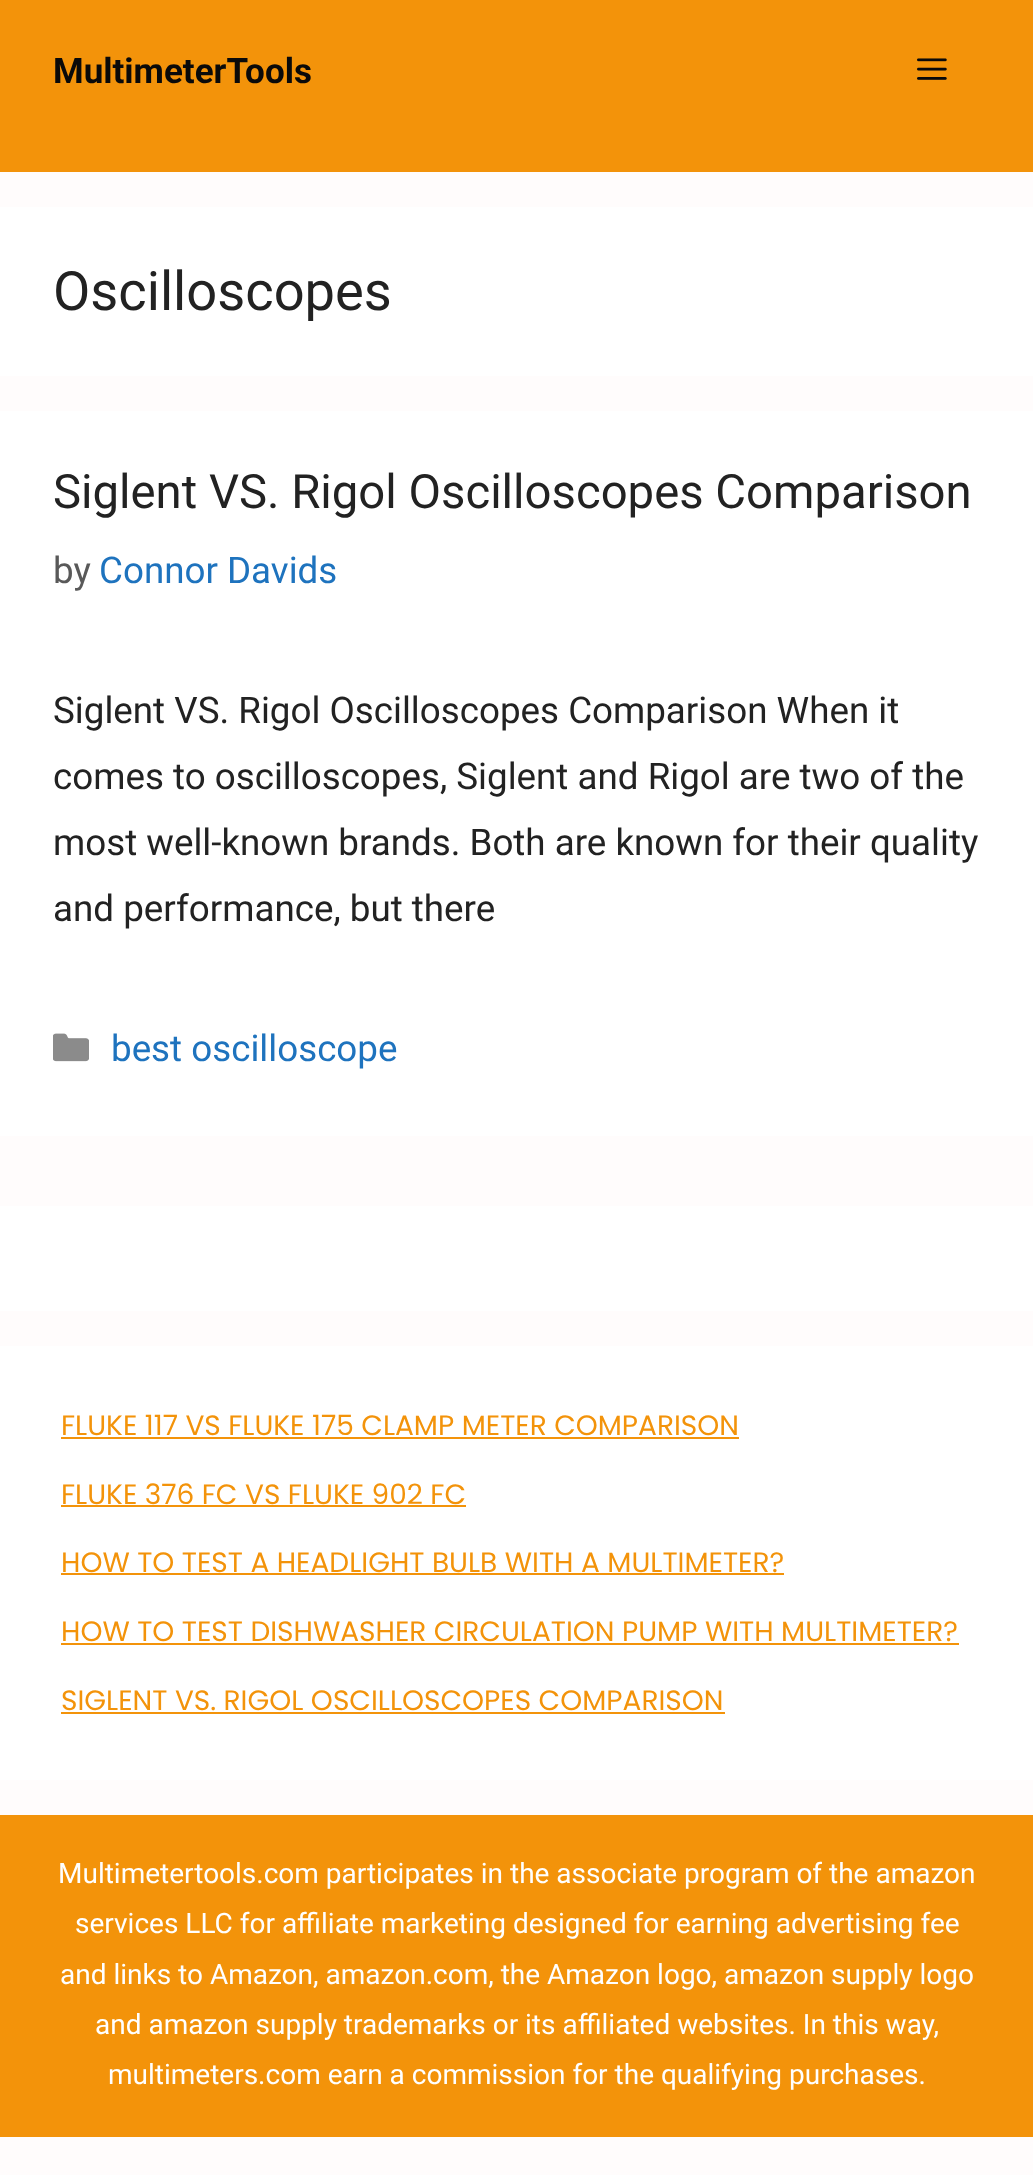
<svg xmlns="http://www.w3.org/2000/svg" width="1033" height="2175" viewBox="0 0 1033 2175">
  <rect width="100%" height="100%" fill="#fffcfc"/>
  <path d="M0 0h1033v172H0z" fill="#f3930a"/>
  <image x="917" y="58" width="30" height="22" href="img/1.png"/>
  <path d="M0 207h1033v169H0z" fill="#fff"/>
  <path d="M0 411h1033v725H0z" fill="#fff"/>
  <image x="53" y="1033" width="36" height="29" href="img/2.png"/>
  <path d="M0 1206h1033v105H0z" fill="#fff"/>
  <path d="M0 1346h1033v434H0z" fill="#fff"/>
  <path d="M61 1437h678v2H61z" fill="#f3930a"/>
  <path d="M61 1505h405v2H61z" fill="#f3930a"/>
  <path d="M61 1573h723v2H61z" fill="#f3930a"/>
  <path d="M61 1643h898v2H61z" fill="#f3930a"/>
  <path d="M61 1712h664v2H61z" fill="#f3930a"/>
  <path d="M0 1815h1033v322H0z" fill="#f3930a"/>
  <text x="53" y="83" font-family="Roboto" font-size="35" font-weight="bold" fill="#0a0a0a">MultimeterTools</text>
  <text x="53" y="310" font-family="Roboto" font-size="54.25" fill="#222">Oscilloscopes</text>
  <text x="53" y="508" font-family="Roboto" font-size="47.25" fill="#222">Siglent VS. Rigol Oscilloscopes Comparison</text>
  <text x="53" y="583" font-family="Roboto" font-size="36.75" fill="#595959">by</text>
  <text x="99" y="583" font-family="Roboto" font-size="36.75" fill="#1e73be">Connor Davids</text>
  <g font-family="Roboto" font-size="36.75" fill="#222">
    <text x="53" y="723">Siglent VS. Rigol Oscilloscopes Comparison When it</text>
    <text x="53" y="789">comes to oscilloscopes, Siglent and Rigol are two of the</text>
    <text x="53" y="855">most well-known brands. Both are known for their quality</text>
    <text x="53" y="921">and performance, but there</text>
  </g>
  <text x="111" y="1061" font-family="Roboto" font-size="36.75" fill="#1e73be">best oscilloscope</text>
  <g font-family="Poppins" font-size="28" fill="#f3930a">
    <text x="61" y="1435">FLUKE 117 VS FLUKE 175 CLAMP METER COMPARISON</text>
    <text x="61" y="1504">FLUKE 376 FC VS FLUKE 902 FC</text>
    <text x="61" y="1572">HOW TO TEST A HEADLIGHT BULB WITH A MULTIMETER?</text>
    <text x="61" y="1641">HOW TO TEST DISHWASHER CIRCULATION PUMP WITH MULTIMETER?</text>
    <text x="61" y="1710">SIGLENT VS. RIGOL OSCILLOSCOPES COMPARISON</text>
  </g>
  <g font-family="Roboto" font-size="28" fill="#fff">
    <text x="58" y="1883">Multimetertools.com participates in the associate program of the amazon</text>
    <text x="75" y="1933">services LLC for affiliate marketing designed for earning advertising fee</text>
    <text x="60" y="1984">and links to Amazon, amazon.com, the Amazon logo, amazon supply logo</text>
    <text x="95" y="2034">and amazon supply trademarks or its affiliated websites. In this way,</text>
    <text x="108" y="2084">multimeters.com earn a commission for the qualifying purchases.</text>
  </g>
</svg>
